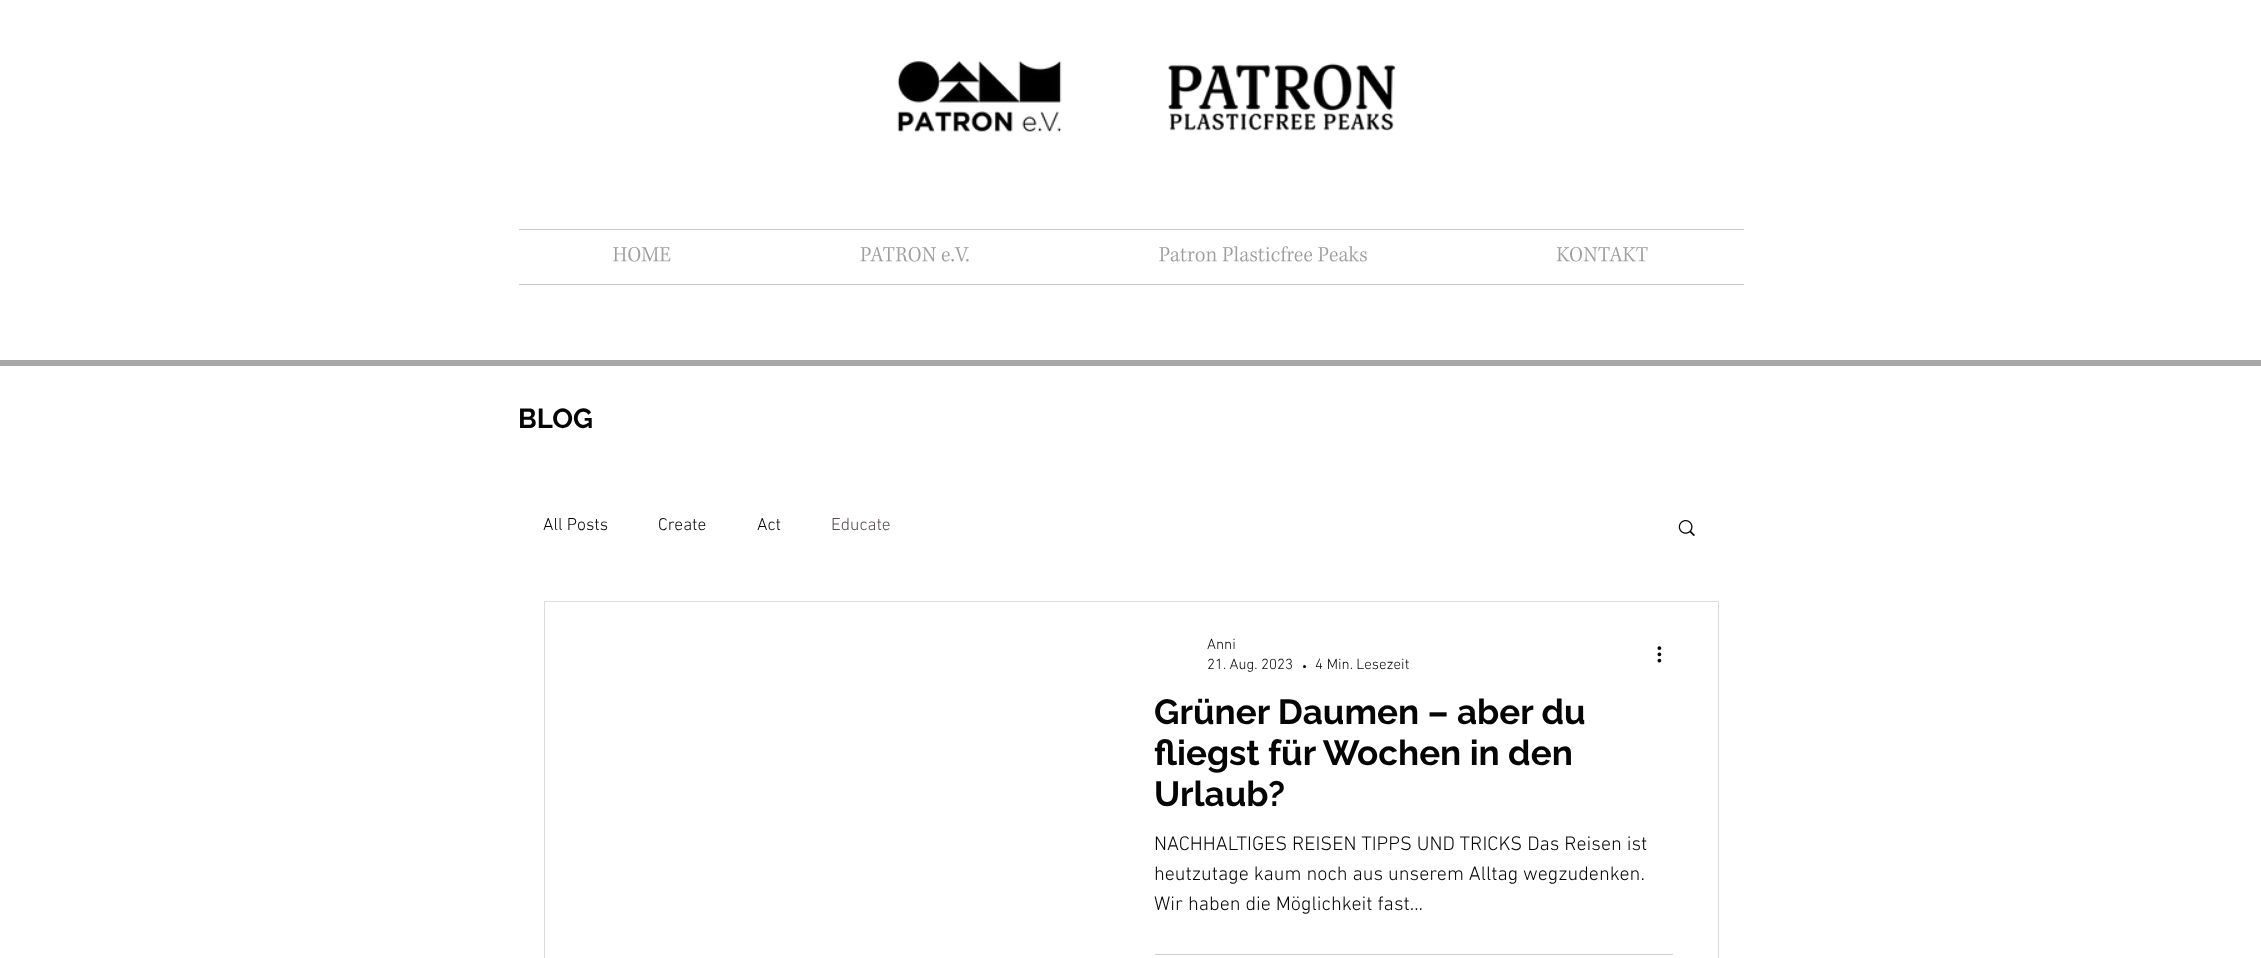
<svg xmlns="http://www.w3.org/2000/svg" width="2261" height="958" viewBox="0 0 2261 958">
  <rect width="100%" height="100%" fill="#fff"/>
  <image x="897" y="61" width="165" height="71" href="img/1.png"/>
  <image x="1168" y="63" width="228" height="68" href="img/2.png"/>
  <path d="M0 360h2261v6H0z" fill="#a7a7a7"/>
  <path d="M519 229h1225v1H519z" fill="#cacaca"/>
  <path d="M519 284h1225v1H519z" fill="#cacaca"/>
  <image x="613" y="246" width="58" height="16" href="img/3.png"/>
  <image x="860" y="246" width="109" height="16" href="img/4.png"/>
  <image x="1159" y="246" width="208" height="16" href="img/5.png"/>
  <image x="1556" y="246" width="92" height="16" href="img/6.png"/>
  <image x="1678" y="520" width="17" height="17" href="img/7.png"/>
  <path d="M544.5 601.5h1174v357H544.5z" fill="none" stroke="#dbdbdb"/>
  <circle cx="1304.5" cy="666.5" r="1.5" fill="#050505"/>
  <image x="1657" y="646" width="5" height="17" href="img/8.png"/>
  <path d="M1155 954h518v1H1155z" fill="#cdcdcd"/>
  <text x="518" y="428" font-family="Raleway" font-size="27.5" font-weight="bold" fill="#050505">BLOG</text>
  <g font-family="'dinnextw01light'" font-size="17.5" font-weight="300" fill="#050505">
    <text x="543" y="530">All Posts</text>
    <text x="658" y="530">Create</text>
    <text x="757" y="530">Act</text>
  </g>
  <text x="831" y="530" font-family="'dinnextw01light'" font-size="17.5" font-weight="300" fill="#554a50">Educate</text>
  <g font-family="'dinnextw01light'" font-size="15" font-weight="300" fill="#050505">
    <text x="1207" y="649">Anni</text>
    <text x="1207" y="669">21. Aug. 2023</text>
    <text x="1315" y="669">4 Min. Lesezeit</text>
  </g>
  <g font-family="Raleway" font-size="35" font-weight="bold" fill="#050505">
    <text x="1154" y="724">Grüner Daumen – aber du</text>
    <text x="1154" y="765">fliegst für Wochen in den</text>
    <text x="1154" y="806">Urlaub?</text>
  </g>
  <g font-family="'dinnextw01light'" font-size="20" font-weight="300" fill="#050505">
    <text x="1154" y="850">NACHHALTIGES REISEN TIPPS UND TRICKS Das Reisen ist</text>
    <text x="1154" y="880">heutzutage kaum noch aus unserem Alltag wegzudenken.</text>
    <text x="1154" y="910">Wir haben die Möglichkeit fast...</text>
  </g>
</svg>
